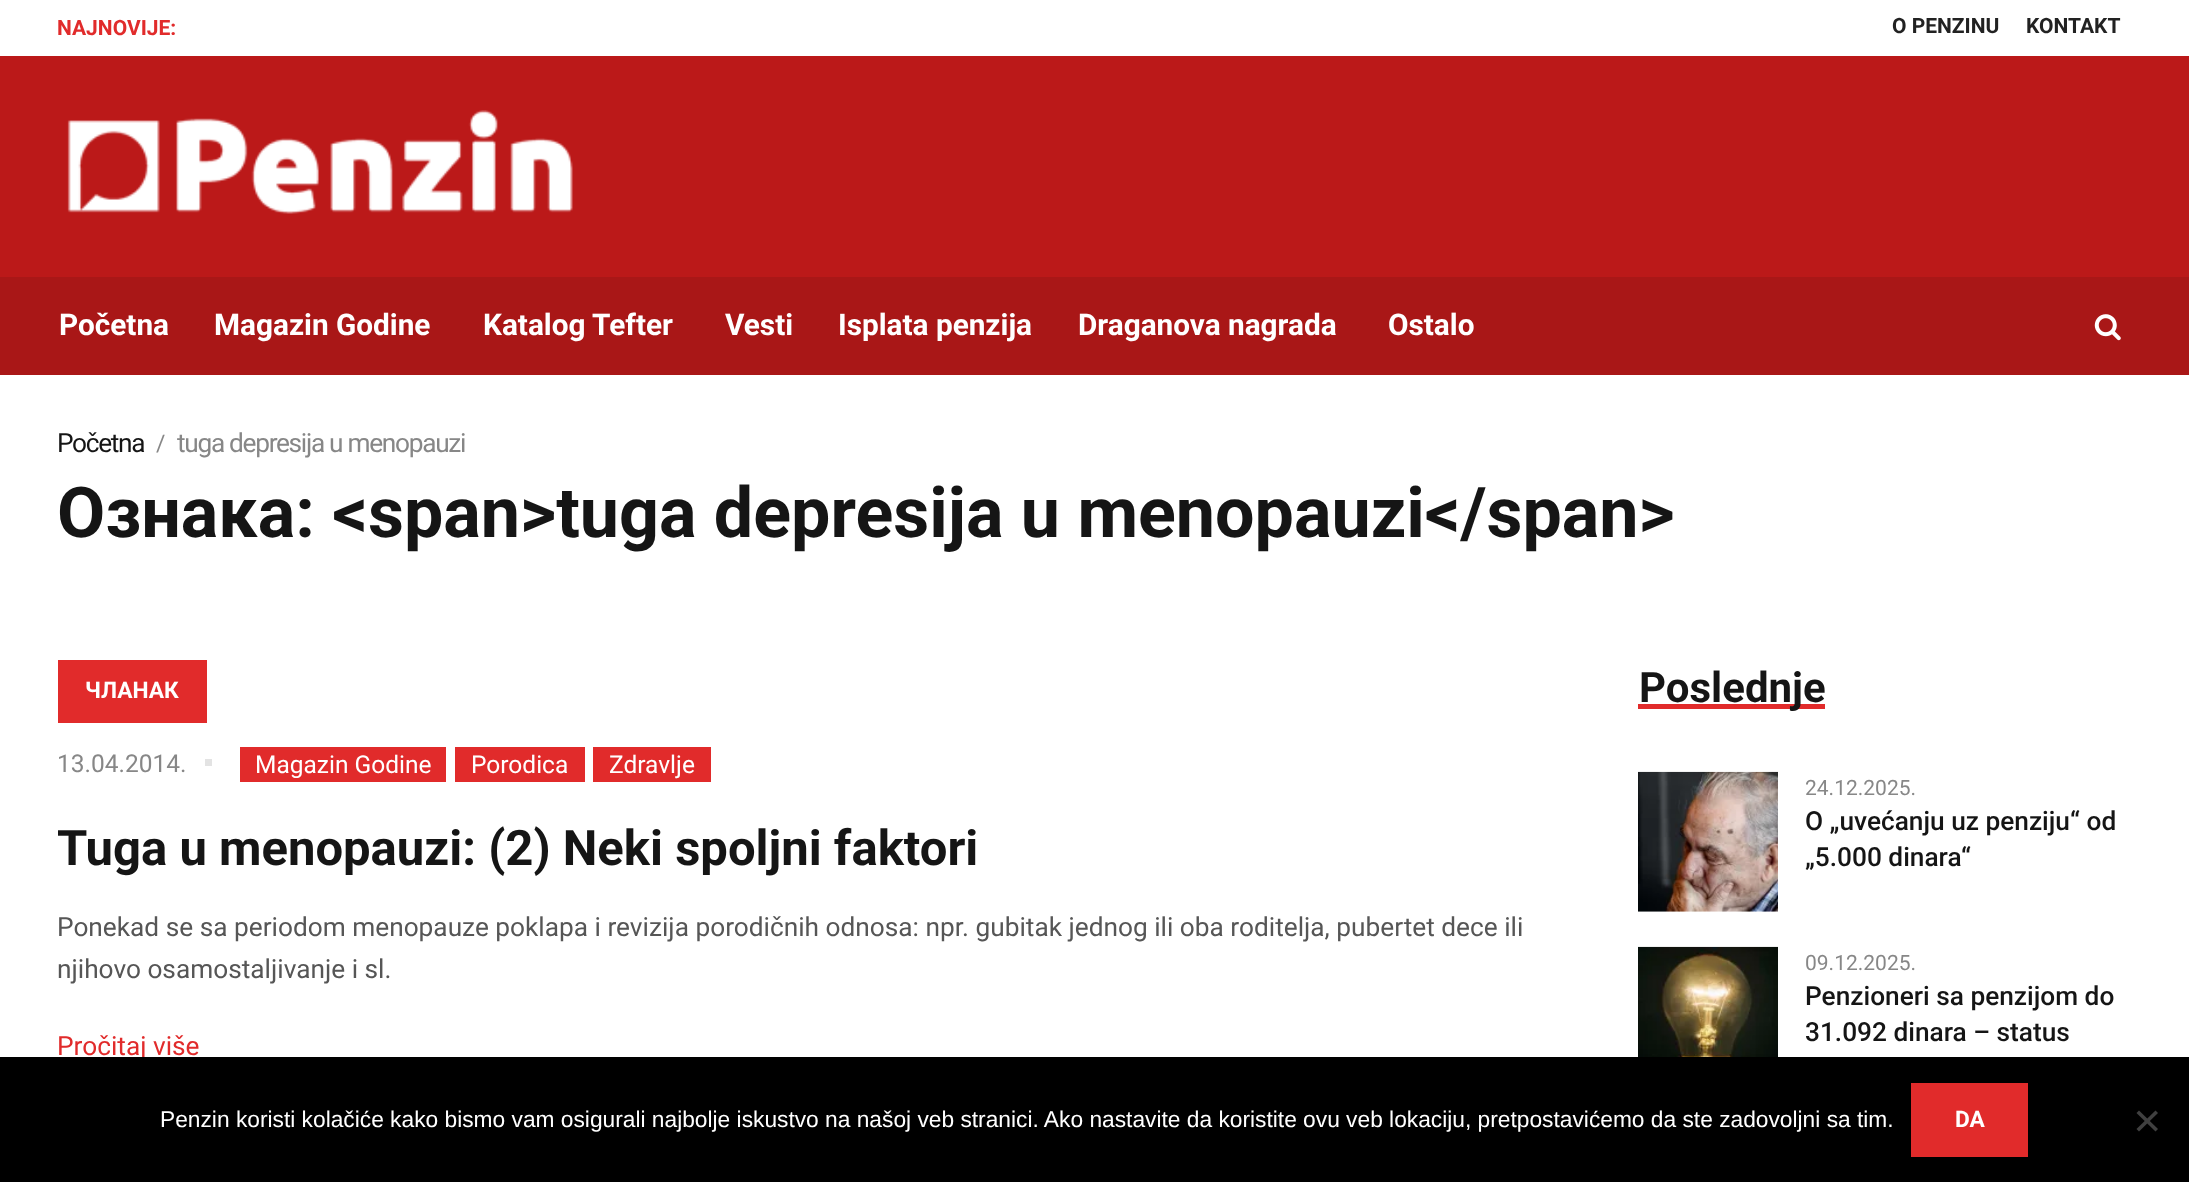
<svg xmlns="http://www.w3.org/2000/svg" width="2189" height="1182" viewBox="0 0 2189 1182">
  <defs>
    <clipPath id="clip1"><path d="M58 660h1493v408H58z"/></clipPath>
  </defs>
  <rect width="100%" height="100%" fill="#fff"/>
  <path d="M0 56h2189v221H0z" fill="#bb1919"/>
  <image x="67" y="110" width="506" height="104" href="img/1.png"/>
  <path d="M0 277h2189v98H0z" fill="#a91717"/>
  <image x="2094" y="314" width="27" height="27" href="img/2.png"/>
  <path d="M58 660h149v63H58z" fill="#e12b2b"/>
  <path d="M205 759h7v7H205z" fill="#e3e3e3"/>
  <path d="M240 747h206v35H240z" fill="#e12b2b"/>
  <path d="M455 747h130v35H455z" fill="#e12b2b"/>
  <path d="M593 747h118v35H593z" fill="#e12b2b"/>
  <path d="M1638 704h187v5H1638z" fill="#e12b2b"/>
  <image x="1638" y="771" width="140" height="141" href="img/3.png"/>
  <image x="1638" y="946" width="140" height="111" href="img/4.png"/>
  <text x="57" y="35" font-family="Roboto" font-size="21" font-weight="bold" fill="#e12b2b">NAJNOVIJE:</text>
  <g font-family="Roboto" font-size="21" font-weight="bold" fill="#222">
    <text x="1892" y="33">O PENZINU</text>
    <text x="2026" y="33">KONTAKT</text>
  </g>
  <g font-family="Roboto" font-size="29.75" font-weight="bold" fill="#fff">
    <text x="59" y="335">Početna</text>
    <text x="214" y="335">Magazin Godine</text>
    <text x="483" y="335">Katalog Tefter</text>
    <text x="725" y="335">Vesti</text>
    <text x="838" y="335">Isplata penzija</text>
    <text x="1078" y="335">Draganova nagrada</text>
    <text x="1388" y="335">Ostalo</text>
  </g>
  <text x="57" y="452" font-family="Roboto" font-size="26.25" letter-spacing="-1.3" fill="#151515">Početna</text>
  <text x="156" y="451" font-family="Roboto" font-size="22.75" letter-spacing="-1.3" fill="#878787">/</text>
  <text x="177" y="452" font-family="Roboto" font-size="26.25" letter-spacing="-1.3" fill="#878787">tuga depresija u menopauzi</text>
  <text x="57" y="537" font-family="Roboto" font-size="70" font-weight="bold" fill="#151515">Ознака: &lt;span&gt;tuga depresija u menopauzi&lt;/span&gt;</text>
  <text x="85" y="698" font-family="Roboto" font-size="22.75" font-weight="bold" fill="#fff">ЧЛАНАК</text>
  <text x="57" y="772" font-family="Roboto" font-size="24.5" fill="#878787">13.04.2014.</text>
  <g font-family="Roboto" font-size="24.5" fill="#fff">
    <text x="255" y="773">Magazin Godine</text>
    <text x="471" y="773">Porodica</text>
    <text x="609" y="773">Zdravlje</text>
  </g>
  <g clip-path="url(#clip1)">
    <text x="57" y="865" font-family="Roboto" font-size="49" font-weight="bold" fill="#151515">Tuga u menopauzi: (2) Neki spoljni faktori</text>
  </g>
  <g font-family="Roboto" font-size="26.25" fill="#565656">
    <text x="57" y="936">Ponekad se sa periodom menopauze poklapa i revizija porodičnih odnosa: npr. gubitak jednog ili oba roditelja, pubertet dece ili</text>
    <text x="57" y="978">njihovo osamostaljivanje i sl.</text>
  </g>
  <text x="57" y="1055" font-family="Roboto" font-size="26.25" fill="#e12b2b">Pročitaj više</text>
  <text x="1639" y="702" font-family="Roboto" font-size="42" font-weight="bold" fill="#151515">Poslednje</text>
  <text x="1805" y="795" font-family="Roboto" font-size="21" fill="#878787">24.12.2025.</text>
  <g font-family="Roboto" font-size="26.25" font-weight="500" fill="#151515">
    <text x="1805" y="830">O „uvećanju uz penziju“ od</text>
    <text x="1805" y="866">„5.000 dinara“</text>
  </g>
  <text x="1805" y="970" font-family="Roboto" font-size="21" fill="#878787">09.12.2025.</text>
  <g font-family="Roboto" font-size="26.25" font-weight="500" fill="#151515">
    <text x="1805" y="1005">Penzioneri sa penzijom do</text>
    <text x="1805" y="1041">31.092 dinara – status</text>
  </g>
  <path d="M0 1057h2189v125H0z" fill="#000"/>
  <text x="160" y="1127" font-family="Liberation Sans" font-size="22.75" fill="#fff">Penzin koristi kolačiće kako bismo vam osigurali najbolje iskustvo na našoj veb stranici. Ako nastavite da koristite ovu veb lokaciju, pretpostavićemo da ste zadovoljni sa tim.</text>
  <path d="M1911 1083h117v74H1911z" fill="#e12b2b"/>
  <text x="1955" y="1127" font-family="Roboto" font-size="22.75" font-weight="bold" fill="#fff">DA</text>
  <path d="M2155.5 1110.5L2158 1113L2139 1131.5L2136.5 1129Z" fill="#404040"/>
  <path d="M2136.5 1113L2139 1110.5L2158 1129L2155.5 1131.5Z" fill="#404040"/>
</svg>
